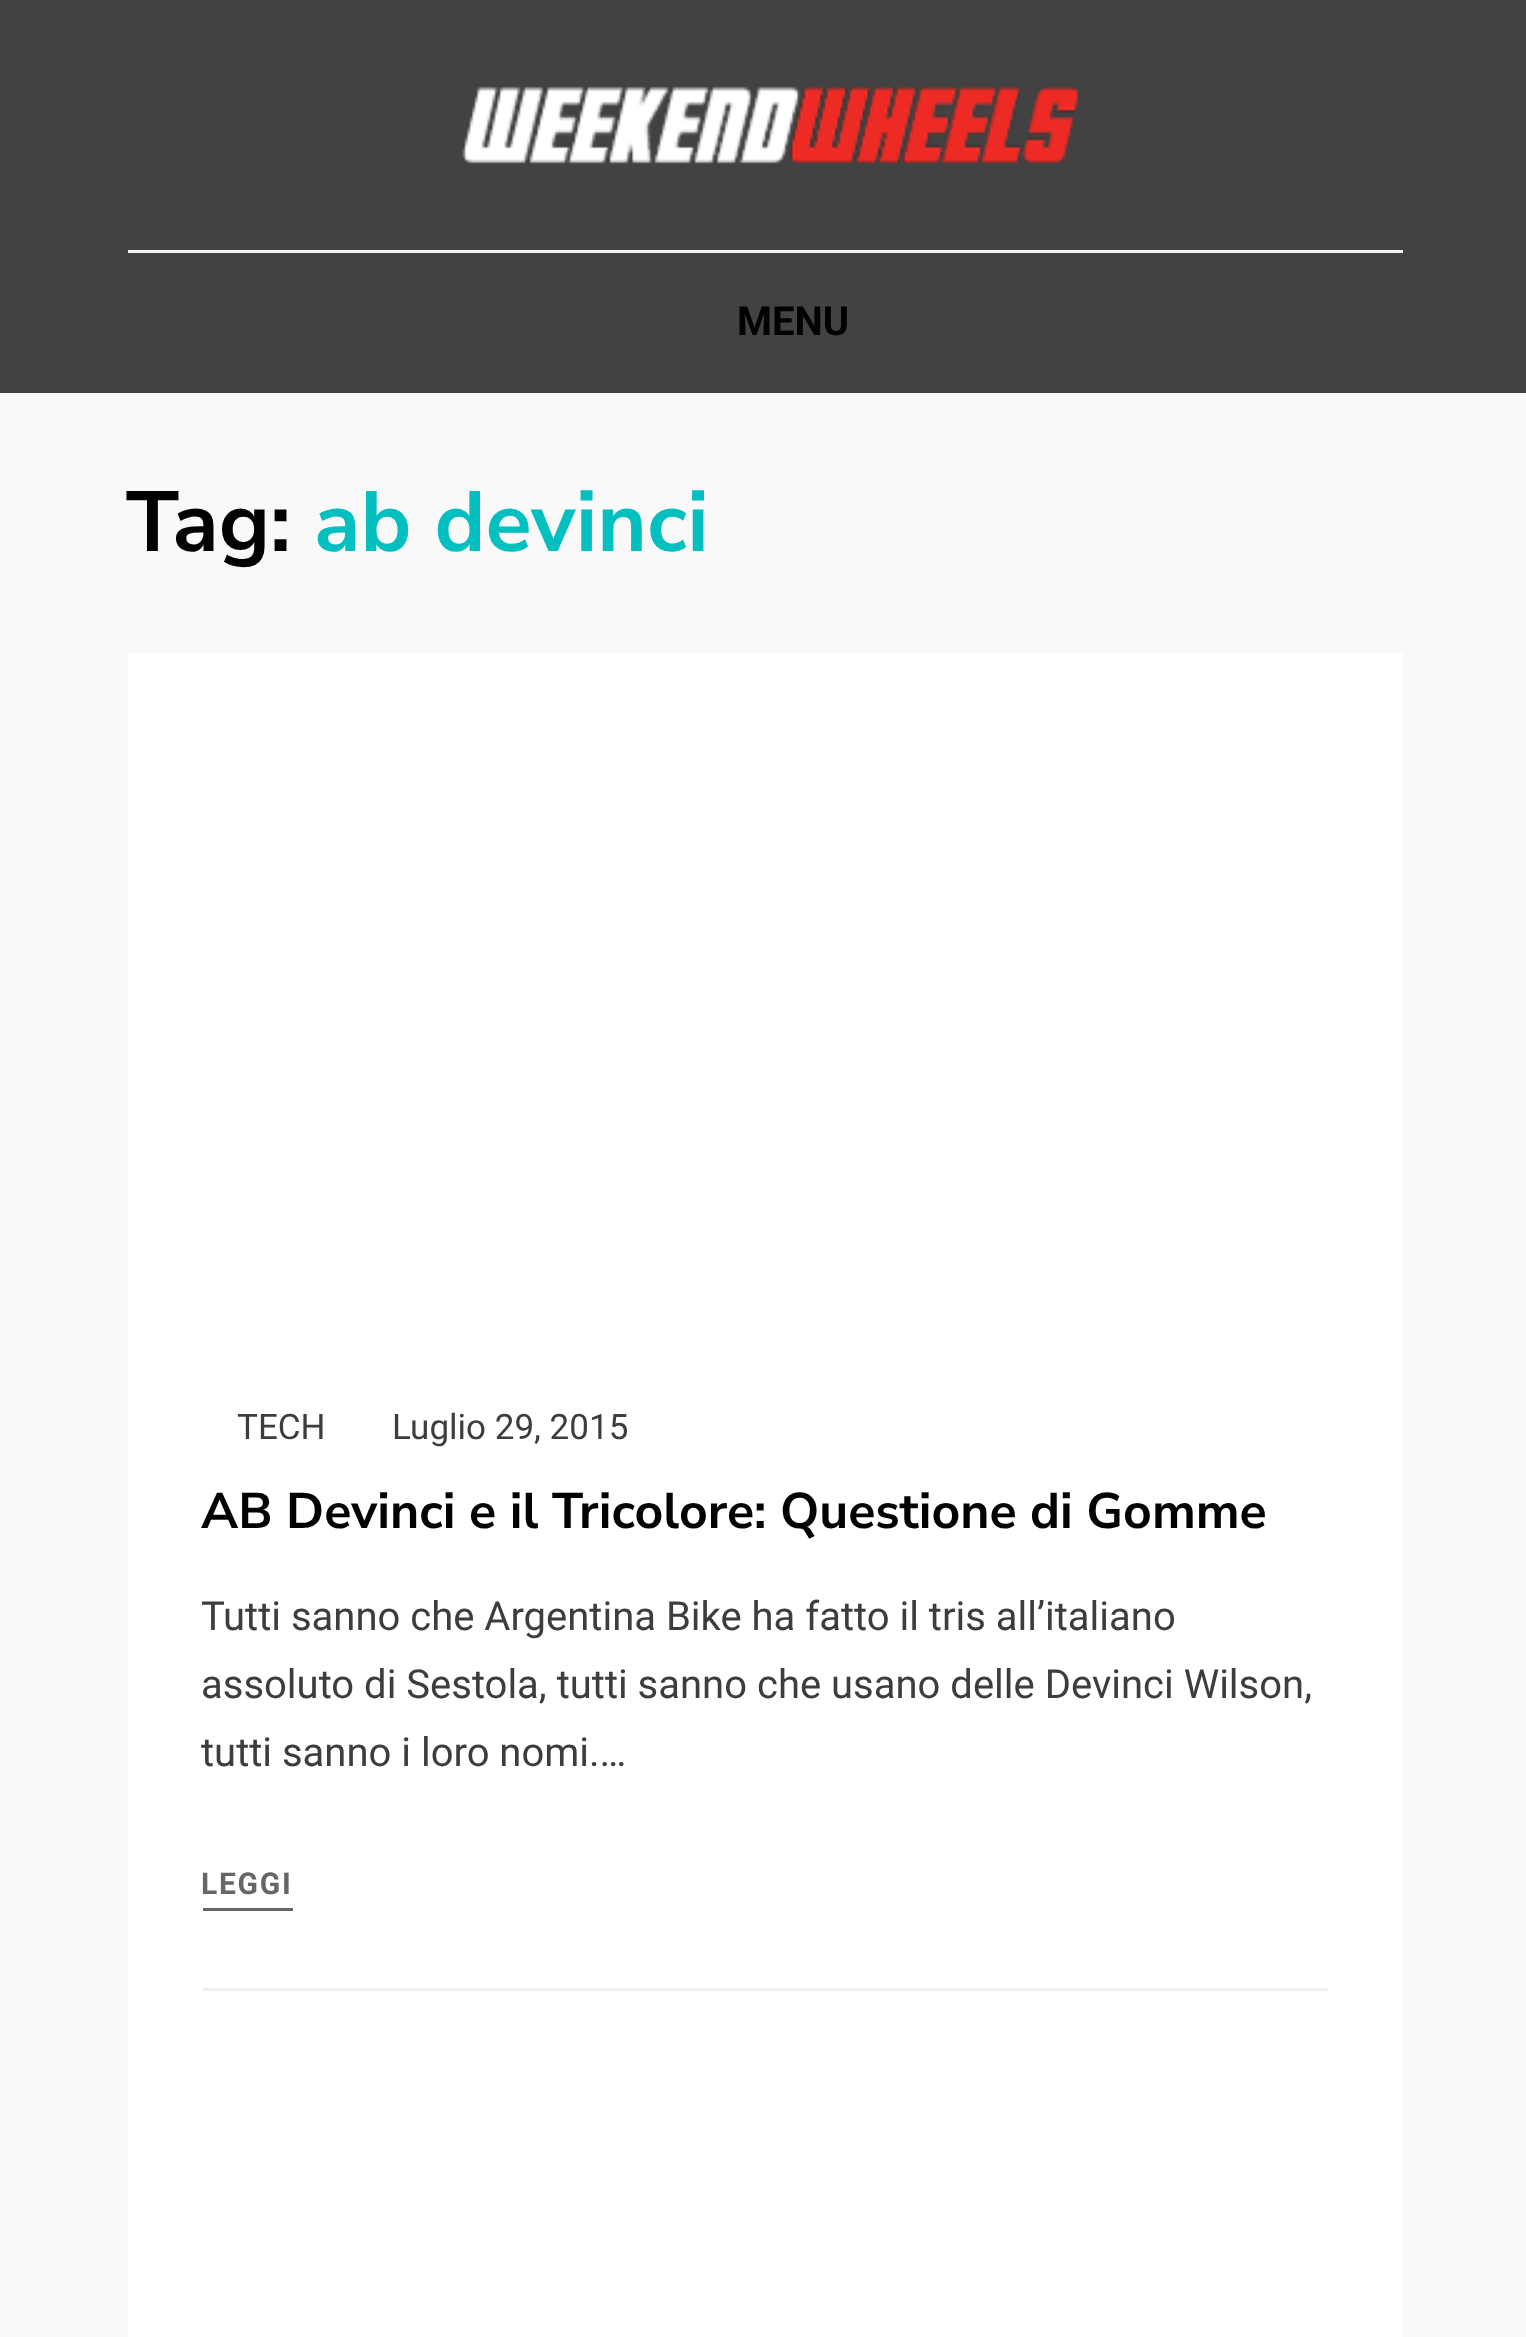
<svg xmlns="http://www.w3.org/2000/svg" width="1526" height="2337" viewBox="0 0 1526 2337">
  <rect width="100%" height="100%" fill="#f9f9f9"/>
  <path d="M0 0h1526v393H0z" fill="#424242"/>
  <image x="462" y="86" width="616" height="78" href="img/1.png"/>
  <path d="M128 250h1275v3H128z" fill="#f0f0f0"/>
  <path d="M128 653h1275v1684H128z" fill="#fff"/>
  <path d="M203 1908h90v3H203z" fill="#666"/>
  <path d="M203 1988h1125v3H203z" fill="#f0f0f0"/>
  <text x="737" y="335" font-family="Roboto" font-size="40" font-weight="bold" fill="#020202">MENU</text>
  <text x="126" y="551" font-family="Nunito Sans" font-size="85" font-weight="bold" fill="#020202">Tag:</text>
  <text x="314" y="551" font-family="Nunito Sans" font-size="85" font-weight="bold" fill="#04bfbf">ab devinci</text>
  <g font-family="Roboto" font-size="35" fill="#3d3d3d">
    <text x="237" y="1439">TECH</text>
    <text x="392" y="1439">Luglio 29, 2015</text>
  </g>
  <text x="201" y="1528" font-family="Nunito Sans" font-size="50" font-weight="bold" fill="#020202">AB Devinci e il Tricolore: Questione di Gomme</text>
  <g font-family="Roboto" font-size="40" fill="#3d3d3d">
    <text x="201" y="1630">Tutti sanno che Argentina Bike ha fatto il tris all’italiano</text>
    <text x="201" y="1698">assoluto di Sestola, tutti sanno che usano delle Devinci Wilson,</text>
    <text x="201" y="1766">tutti sanno i loro nomi.…</text>
  </g>
  <text x="201" y="1894" font-family="Roboto" font-size="30" font-weight="bold" letter-spacing="1.75" fill="#666">LEGGI</text>
</svg>
